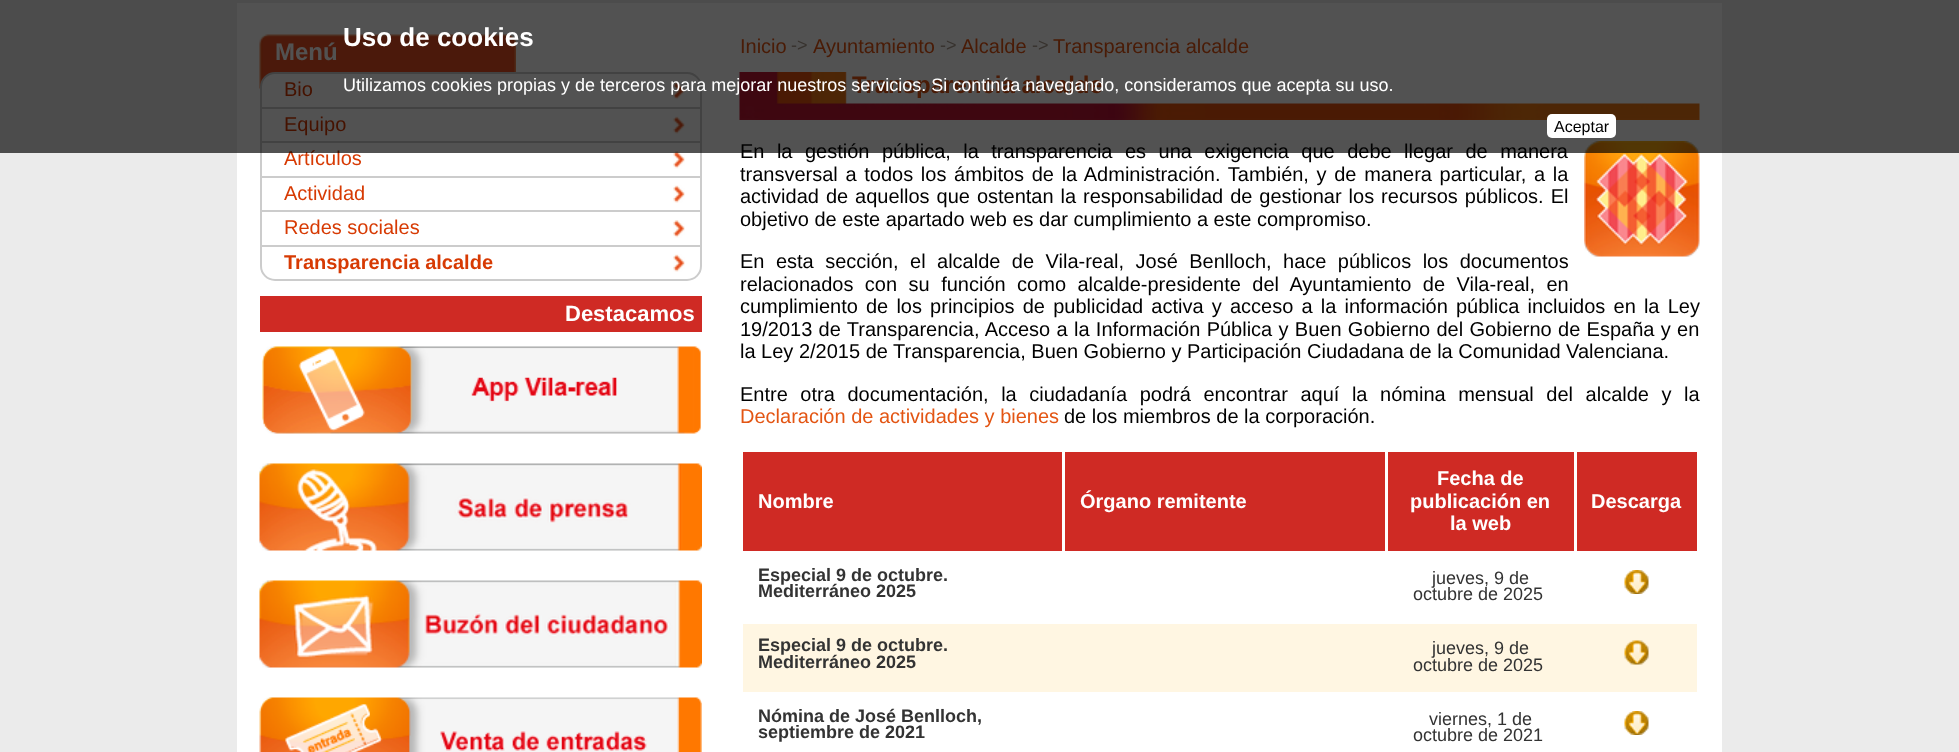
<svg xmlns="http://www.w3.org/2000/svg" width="1959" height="752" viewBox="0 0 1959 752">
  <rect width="100%" height="100%" fill="#ebebeb"/>
  <path d="M237 3h1485v749H237z" fill="#fff"/>
  <image x="259" y="34" width="257" height="55" href="img/1.png"/>
  <rect x="261" y="73" width="440" height="207" rx="14" fill="#fff" stroke="#ccc" stroke-width="2"/>
  <path d="M261 107h440v2H261z" fill="#ccc"/>
  <image x="673" y="82" width="12" height="18" href="img/2.png"/>
  <path d="M261 141h440v2H261z" fill="#ccc"/>
  <image x="673" y="116" width="12" height="18" href="img/3.png"/>
  <path d="M261 176h440v2H261z" fill="#ccc"/>
  <image x="673" y="151" width="12" height="18" href="img/2.png"/>
  <path d="M261 210h440v2H261z" fill="#ccc"/>
  <image x="673" y="185" width="12" height="18" href="img/3.png"/>
  <path d="M261 245h440v2H261z" fill="#ccc"/>
  <image x="673" y="220" width="12" height="18" href="img/2.png"/>
  <image x="673" y="254" width="12" height="18" href="img/3.png"/>
  <path d="M260 296h442v36H260z" fill="#cf2a24"/>
  <image x="262" y="346" width="439" height="88" href="img/4.png"/>
  <image x="259" y="463" width="443" height="88" href="img/5.png"/>
  <image x="259" y="580" width="443" height="88" href="img/6.png"/>
  <image x="259" y="697" width="443" height="55" href="img/7.png"/>
  <image x="739" y="72" width="961" height="48" href="img/8.png"/>
  <image x="1584" y="141" width="116" height="116" href="img/9.png"/>
  <path d="M743 452h319v99H743z" fill="#cf2a24"/>
  <path d="M1065 452h320v99H1065z" fill="#cf2a24"/>
  <path d="M1388 452h186v99H1388z" fill="#cf2a24"/>
  <path d="M1577 452h120v99H1577z" fill="#cf2a24"/>
  <image x="1624" y="570" width="25" height="24" href="img/10.png"/>
  <path d="M743 624h954v68H743z" fill="#fff6e2"/>
  <image x="1624" y="640" width="25" height="25" href="img/11.png"/>
  <image x="1624" y="711" width="25" height="24" href="img/10.png"/>
  <text x="275" y="60" font-family="Liberation Sans" font-size="24" font-weight="bold" fill="#fff">Menú</text>
  <g font-family="Liberation Sans" font-size="20" fill="#d73a03">
    <text x="284" y="96">Bio</text>
    <text x="284" y="131">Equipo</text>
    <text x="284" y="165">Artículos</text>
    <text x="284" y="200">Actividad</text>
    <text x="284" y="234">Redes sociales</text>
  </g>
  <text x="284" y="269" font-family="Liberation Sans" font-size="20" font-weight="bold" fill="#d73a03">Transparencia alcalde</text>
  <text x="565" y="321" font-family="Liberation Sans" font-size="22" font-weight="bold" fill="#fff">Destacamos</text>
  <text x="740" y="53" font-family="Liberation Sans" font-size="20" fill="#e35513">Inicio</text>
  <text x="791" y="51" font-family="Liberation Sans" font-size="18" fill="#ab9c8f">-&gt;</text>
  <text x="813" y="53" font-family="Liberation Sans" font-size="20" fill="#e35513">Ayuntamiento</text>
  <text x="940" y="51" font-family="Liberation Sans" font-size="18" fill="#ab9c8f">-&gt;</text>
  <text x="961" y="53" font-family="Liberation Sans" font-size="20" fill="#e35513">Alcalde</text>
  <text x="1032" y="51" font-family="Liberation Sans" font-size="18" fill="#ab9c8f">-&gt;</text>
  <text x="1053" y="53" font-family="Liberation Sans" font-size="20" fill="#e35513">Transparencia alcalde</text>
  <text x="852" y="93" font-family="Liberation Sans" font-size="24" font-weight="bold" fill="#e35513">Transparencia alcalde</text>
  <text x="740" y="158" word-spacing="6.9" font-family="Liberation Sans" font-size="20" fill="#000">En la gestión pública, la transparencia es una exigencia que debe llegar de manera</text>
  <path d="M0 0h1959v153H0z" fill="#000000ad"/>
  <text x="343" y="91" font-family="Liberation Sans" font-size="18" fill="#fff">Utilizamos cookies propias y de terceros para mejorar nuestros servicios. Si continúa navegando, consideramos que acepta su uso.</text>
  <text x="343" y="46" font-family="Liberation Sans" font-size="26" font-weight="bold" fill="#fff">Uso de cookies</text>
  <rect x="1547" y="114" width="69" height="24" rx="5" fill="#fff"/>
  <text x="1554" y="132" font-family="Liberation Sans" font-size="16" fill="#000">Aceptar</text>
  <g font-family="Liberation Sans" font-size="20" fill="#000">
    <text x="740" y="181" word-spacing="2.1">transversal a todos los ámbitos de la Administración. También, y de manera particular, a la</text>
    <text x="740" y="203" word-spacing="1.4">actividad de aquellos que ostentan la responsabilidad de gestionar los recursos públicos. El</text>
    <text x="740" y="226">objetivo de este apartado web es dar cumplimiento a este compromiso.</text>
    <text x="740" y="268" word-spacing="5.9">En esta sección, el alcalde de Vila-real, José Benlloch, hace públicos los documentos</text>
    <text x="740" y="291" word-spacing="5.9">relacionados con su función como alcalde-presidente del Ayuntamiento de Vila-real, en</text>
    <text x="740" y="313" word-spacing="2.6">cumplimiento de los principios de publicidad activa y acceso a la información pública incluidos en la Ley</text>
    <text x="740" y="336" word-spacing="0.75">19/2013 de Transparencia, Acceso a la Información Pública y Buen Gobierno del Gobierno de España y en</text>
    <text x="740" y="358">la Ley 2/2015 de Transparencia, Buen Gobierno y Participación Ciudadana de la Comunidad Valenciana.</text>
    <text x="740" y="401" word-spacing="7">Entre otra documentación, la ciudadanía podrá encontrar aquí la nómina mensual del alcalde y la</text>
  </g>
  <text x="740" y="423" font-family="Liberation Sans" font-size="20" fill="#e35513">Declaración de actividades y bienes</text>
  <text x="1064" y="423" font-family="Liberation Sans" font-size="20" fill="#000">de los miembros de la corporación.</text>
  <g font-family="Liberation Sans" font-size="20" font-weight="bold" fill="#fff">
    <text x="758" y="508">Nombre</text>
    <text x="1080" y="508">Órgano remitente</text>
    <text x="1437" y="485">Fecha de</text>
    <text x="1410" y="508">publicación en</text>
    <text x="1450" y="530">la web</text>
    <text x="1591" y="508">Descarga</text>
  </g>
  <g font-family="Liberation Sans" font-size="18" font-weight="bold" fill="#333">
    <text x="758" y="581">Especial 9 de octubre.</text>
    <text x="758" y="597">Mediterráneo 2025</text>
  </g>
  <g font-family="Liberation Sans" font-size="18" fill="#333">
    <text x="1432" y="584">jueves, 9 de</text>
    <text x="1413" y="600">octubre de 2025</text>
  </g>
  <g font-family="Liberation Sans" font-size="18" font-weight="bold" fill="#333">
    <text x="758" y="651">Especial 9 de octubre.</text>
    <text x="758" y="668">Mediterráneo 2025</text>
  </g>
  <g font-family="Liberation Sans" font-size="18" fill="#333">
    <text x="1432" y="654">jueves, 9 de</text>
    <text x="1413" y="671">octubre de 2025</text>
  </g>
  <g font-family="Liberation Sans" font-size="18" font-weight="bold" fill="#333">
    <text x="758" y="722">Nómina de José Benlloch,</text>
    <text x="758" y="738">septiembre de 2021</text>
  </g>
  <g font-family="Liberation Sans" font-size="18" fill="#333">
    <text x="1429" y="725">viernes, 1 de</text>
    <text x="1413" y="741">octubre de 2021</text>
  </g>
</svg>
